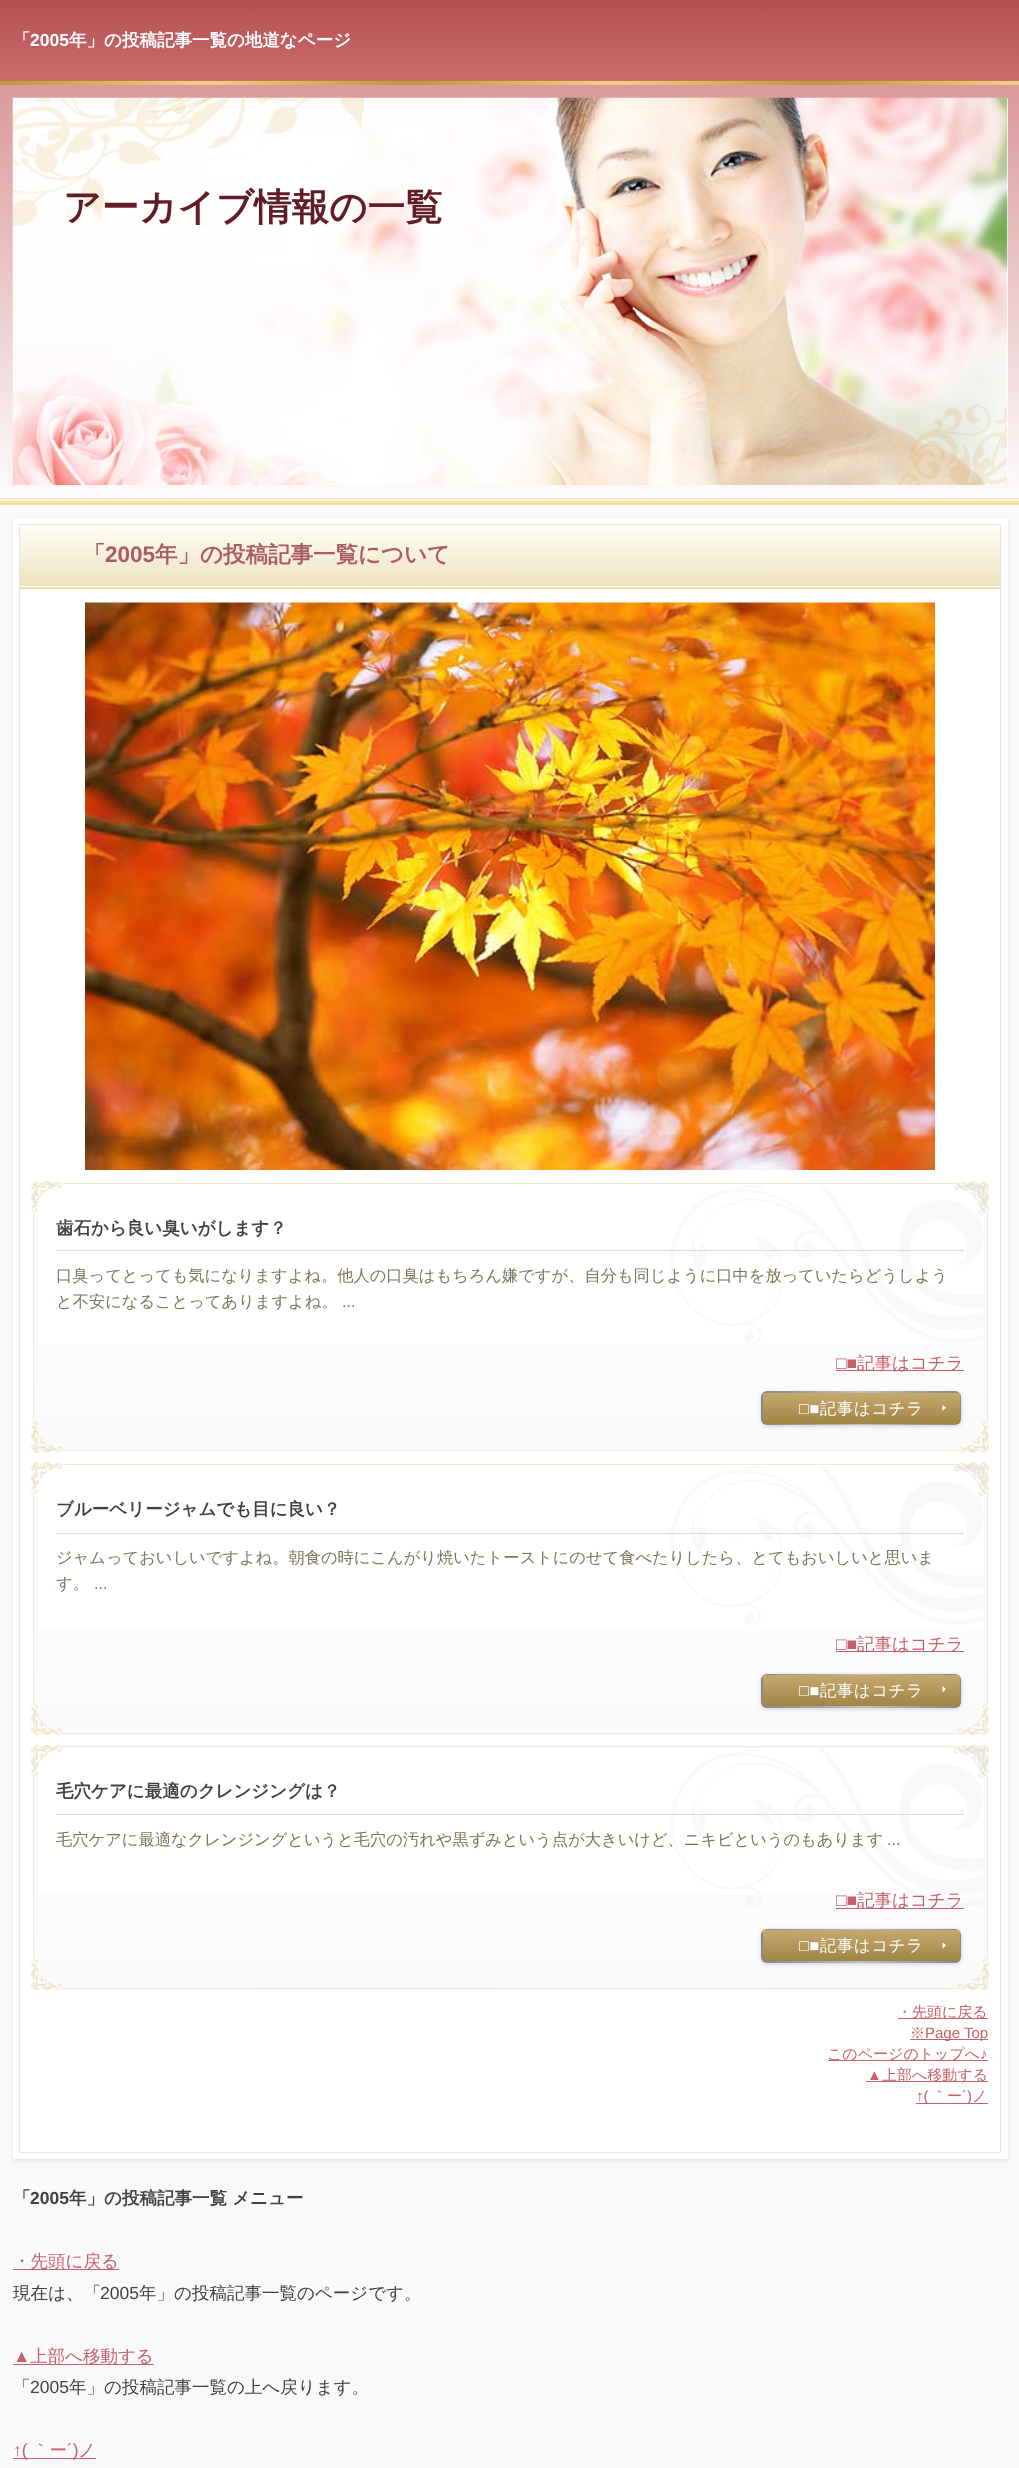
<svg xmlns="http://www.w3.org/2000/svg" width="1019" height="2468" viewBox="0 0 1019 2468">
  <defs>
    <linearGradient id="g1" gradientUnits="userSpaceOnUse" x1="510" y1="0" x2="510" y2="85"><stop offset="0" stop-color="#b34f51"/><stop offset="1" stop-color="#cc6e70"/></linearGradient>
    <linearGradient id="g2" gradientUnits="userSpaceOnUse" x1="0" y1="83" x2="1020" y2="83"><stop offset="0" stop-color="#c19732"/><stop offset="0.2" stop-color="#f4d182"/><stop offset="0.4" stop-color="#c19732"/><stop offset="0.6" stop-color="#f4d182"/><stop offset="0.8" stop-color="#c19732"/><stop offset="1" stop-color="#f4d182"/></linearGradient>
    <linearGradient id="g3" gradientUnits="userSpaceOnUse" x1="510" y1="85" x2="510" y2="498"><stop offset="0" stop-color="#db999a"/><stop offset="1" stop-color="#fdfbfc"/></linearGradient>
    <linearGradient id="g4" gradientUnits="userSpaceOnUse" x1="510" y1="499" x2="510" y2="505"><stop offset="0.15" stop-color="#f8f2d5"/><stop offset="0.7" stop-color="#f0df95"/></linearGradient>
    <linearGradient id="g5" gradientUnits="userSpaceOnUse" x1="510" y1="525" x2="510" y2="588"><stop offset="0" stop-color="#fefdf6"/><stop offset="1" stop-color="#ede2bd"/></linearGradient>
    <linearGradient id="g6" gradientUnits="userSpaceOnUse" x1="510" y1="1184" x2="510" y2="1450"><stop offset="0.32" stop-color="#fff"/><stop offset="1" stop-color="#f9f9fb"/></linearGradient>
    <linearGradient id="g7" gradientUnits="userSpaceOnUse" x1="761" y1="1408" x2="961" y2="1408"><stop offset="0" stop-color="#848689"/><stop offset="0.5" stop-color="#bfbfc2"/><stop offset="1" stop-color="#848689"/></linearGradient>
    <clipPath id="clip1"><rect x="761" y="1391" width="200" height="34" rx="6"/></clipPath>
    <linearGradient id="g8" gradientUnits="userSpaceOnUse" x1="861" y1="1393" x2="861" y2="1424"><stop offset="0" stop-color="#c5a96d"/><stop offset="1" stop-color="#a18446"/></linearGradient>
    <linearGradient id="g9" gradientUnits="userSpaceOnUse" x1="510" y1="1465" x2="510" y2="1733"><stop offset="0.32" stop-color="#fff"/><stop offset="1" stop-color="#f9f9fb"/></linearGradient>
    <linearGradient id="g10" gradientUnits="userSpaceOnUse" x1="761" y1="1691" x2="961" y2="1691"><stop offset="0" stop-color="#848689"/><stop offset="0.5" stop-color="#bfbfc2"/><stop offset="1" stop-color="#848689"/></linearGradient>
    <clipPath id="clip2"><rect x="761" y="1674" width="200" height="34" rx="6"/></clipPath>
    <linearGradient id="g11" gradientUnits="userSpaceOnUse" x1="861" y1="1675" x2="861" y2="1706"><stop offset="0" stop-color="#c5a96d"/><stop offset="1" stop-color="#a18446"/></linearGradient>
    <linearGradient id="g12" gradientUnits="userSpaceOnUse" x1="510" y1="1508" x2="510" y2="1748"><stop offset="0.32" stop-color="#fff"/><stop offset="1" stop-color="#f9f9fb"/></linearGradient>
    <linearGradient id="g13" gradientUnits="userSpaceOnUse" x1="510" y1="1748" x2="510" y2="1988"><stop offset="0.32" stop-color="#fff"/><stop offset="1" stop-color="#f9f9fb"/></linearGradient>
    <linearGradient id="g14" gradientUnits="userSpaceOnUse" x1="761" y1="1946" x2="961" y2="1946"><stop offset="0" stop-color="#848689"/><stop offset="0.5" stop-color="#bfbfc2"/><stop offset="1" stop-color="#848689"/></linearGradient>
    <clipPath id="clip3"><rect x="761" y="1929" width="200" height="34" rx="6"/></clipPath>
    <linearGradient id="g15" gradientUnits="userSpaceOnUse" x1="861" y1="1930" x2="861" y2="1961"><stop offset="0" stop-color="#c5a96d"/><stop offset="1" stop-color="#a18446"/></linearGradient>
  </defs>
  <rect width="100%" height="100%" fill="#f9f9fb"/>
  <path d="M0 0h1019v81H0z" fill="url(#g1)"/>
  <path d="M0 81h1019v4H0z" fill="url(#g2)"/>
  <path d="M0 85h1019v413H0z" fill="url(#g3)"/>
  <path d="M1007 98h1v387H1007z" fill="#fff"/>
  <image x="12" y="97" width="996" height="388" href="img/1.png"/>
  <path d="M0 499h1019v6H0z" fill="url(#g4)"/>
  <path d="M0 498h1019v1H0z" fill="#ede0c9"/>
  <path d="M13 520h995v1641H13z" fill="#cecece80" filter="blur(2px)"/>
  <path d="M13 518h995v1641H13z" fill="#fff"/>
  <path d="M19.5 524.5h981v1628H19.5z" fill="none" stroke="#e5e5e8"/>
  <path d="M20 525h980v63H20z" fill="url(#g5)"/>
  <path d="M20 588h980v1H20z" fill="#efdb97"/>
  <path d="M20 586h980v1H20z" fill="#fff"/>
  <image x="85" y="602" width="850" height="568" href="img/2.png"/>
  <path d="M34 1344h953v106H34z" fill="url(#g6)"/>
  <path d="M33.5 1183.5h954v267H33.5z" fill="none" stroke="#efe9d5"/>
  <image x="31" y="1181" width="33" height="33" href="img/3.png"/>
  <image x="956" y="1181" width="33" height="32" href="img/4.png"/>
  <image x="670" y="1183" width="315" height="161" href="img/5.png"/>
  <path d="M56 1250h908v1H56z" fill="#dbdae0"/>
  <path d="M836 1370h128v1H836z" fill="#c66069"/>
  <image x="957" y="1421" width="32" height="32" href="img/7.png"/>
  <rect x="761" y="1393" width="200" height="33" rx="6" fill="#23232433" filter="blur(2px)"/>
  <rect x="761" y="1391" width="200" height="34" rx="6" fill="url(#g7)"/>
  <g clip-path="url(#clip1)">
    <path d="M763 1393h197v31H763z" fill="url(#g8)"/>
  </g>
  <path d="M942.5 1411V1405L946 1407.5Z" fill="#fff"/>
  <image x="31" y="1420" width="32" height="33" href="img/6.png"/>
  <path d="M34 1627h953v106H34z" fill="url(#g9)"/>
  <path d="M33.5 1464.5h954v269H33.5z" fill="none" stroke="#efe9d5"/>
  <image x="31" y="1462" width="32" height="33" href="img/8.png"/>
  <image x="957" y="1462" width="32" height="32" href="img/9.png"/>
  <image x="670" y="1465" width="315" height="160" href="img/10.png"/>
  <path d="M56 1533h908v1H56z" fill="#dbdae0"/>
  <path d="M836 1651h128v1H836z" fill="#c66069"/>
  <image x="957" y="1703" width="32" height="33" href="img/12.png"/>
  <rect x="761" y="1675" width="200" height="34" rx="6" fill="#23232433" filter="blur(2px)"/>
  <rect x="761" y="1674" width="200" height="34" rx="6" fill="url(#g10)"/>
  <g clip-path="url(#clip2)">
    <path d="M763 1675h197v31H763z" fill="url(#g11)"/>
  </g>
  <path d="M942.5 1692.5V1686L946 1689Z" fill="#fff"/>
  <image x="31" y="1703" width="32" height="33" href="img/11.png"/>
  <path d="M33 1747h955v1H33z" fill="url(#g12)"/>
  <path d="M34 1893h953v95H34z" fill="url(#g13)"/>
  <path d="M33.5 1746.5h954v242H33.5z" fill="none" stroke="#efe9d5"/>
  <image x="31" y="1745" width="32" height="33" href="img/13.png"/>
  <image x="957" y="1744" width="32" height="33" href="img/14.png"/>
  <image x="670" y="1747" width="315" height="161" href="img/15.png"/>
  <path d="M56 1814h908v1H56z" fill="#dbdae0"/>
  <path d="M836 1908h128v1H836z" fill="#c66069"/>
  <image x="957" y="1958" width="32" height="33" href="img/17.png"/>
  <rect x="761" y="1930" width="200" height="34" rx="6" fill="#23232433" filter="blur(2px)"/>
  <rect x="761" y="1929" width="200" height="34" rx="6" fill="url(#g14)"/>
  <g clip-path="url(#clip3)">
    <path d="M763 1930h197v31H763z" fill="url(#g15)"/>
  </g>
  <path d="M942.5 1949V1942.5L946 1945Z" fill="#fff"/>
  <image x="31" y="1958" width="32" height="33" href="img/16.png"/>
  <path d="M898 2018h90v1H898z" fill="#c66069"/>
  <path d="M910 2039h78v1H910z" fill="#c66069"/>
  <path d="M828 2060h160v1H828z" fill="#c66069"/>
  <path d="M866 2081h122v1H866z" fill="#c66069"/>
  <path d="M916 2103h72v1H916z" fill="#c66069"/>
  <path d="M13 2269h106v1H13z" fill="#c66069"/>
  <path d="M13 2364h141v1H13z" fill="#c66069"/>
  <path d="M13 2458h83v1H13z" fill="#c66069"/>
  <text x="13" y="46" font-family="WenQuanYi Zen Hei" font-size="17.5" font-weight="bold" fill="#fff">「</text>
  <text x="30" y="46" font-family="Liberation Sans" font-size="17.5" font-weight="bold" fill="#fff">2005</text>
  <text x="69" y="46" font-family="WenQuanYi Zen Hei" font-size="17.5" font-weight="bold" fill="#fff">年」の投稿記事一覧の地道なページ</text>
  <text x="63" y="220" font-family="WenQuanYi Zen Hei" font-size="37.5" font-weight="bold" fill="#601d26">アーカイブ情報の一覧</text>
  <text x="83" y="562" font-family="WenQuanYi Zen Hei" font-size="22.5" font-weight="bold" fill="#ab5b62">「</text>
  <text x="105" y="562" font-family="Liberation Sans" font-size="22.5" font-weight="bold" fill="#ab5b62">2005</text>
  <text x="155" y="562" font-family="WenQuanYi Zen Hei" font-size="22.5" font-weight="bold" fill="#ab5b62">年」の投稿記事一覧について</text>
  <text x="56" y="1234" font-family="WenQuanYi Zen Hei" font-size="17.5" font-weight="bold" fill="#414141">歯石から良い臭いがします？</text>
  <g font-family="WenQuanYi Zen Hei" font-size="16.25" font-weight="500" fill="#7a755d">
    <text x="56" y="1281">口臭ってとっても気になりますよね。他人の口臭はもちろん嫌ですが、自分も同じように口中を放っていたらどうしよう</text>
    <text x="56" y="1307">と不安になることってありますよね。</text>
  </g>
  <text x="342" y="1307" font-family="Liberation Sans" font-size="16.25" fill="#7a755d">...</text>
  <text x="836" y="1369" font-family="Liberation Sans" font-size="17.5" fill="#c66069">□■</text>
  <text x="857" y="1369" font-family="WenQuanYi Zen Hei" font-size="17.5" font-weight="500" fill="#c66069">記事はコチラ</text>
  <text x="799" y="1414" font-family="Liberation Sans" font-size="16.25" letter-spacing="0.75" fill="#fff">□■</text>
  <text x="820" y="1414" font-family="WenQuanYi Zen Hei" font-size="16.25" font-weight="500" letter-spacing="0.75" fill="#fff">記事はコチラ</text>
  <text x="56" y="1515" font-family="WenQuanYi Zen Hei" font-size="17.5" font-weight="bold" fill="#414141">ブルーベリージャムでも目に良い？</text>
  <g font-family="WenQuanYi Zen Hei" font-size="16.25" font-weight="500" fill="#7a755d">
    <text x="56" y="1563">ジャムっておいしいですよね。朝食の時にこんがり焼いたトーストにのせて食べたりしたら、とてもおいしいと思いま</text>
    <text x="56" y="1589">す。</text>
  </g>
  <text x="94" y="1589" font-family="Liberation Sans" font-size="16.25" fill="#7a755d">...</text>
  <text x="836" y="1650" font-family="Liberation Sans" font-size="17.5" fill="#c66069">□■</text>
  <text x="857" y="1650" font-family="WenQuanYi Zen Hei" font-size="17.5" font-weight="500" fill="#c66069">記事はコチラ</text>
  <text x="799" y="1696" font-family="Liberation Sans" font-size="16.25" letter-spacing="0.75" fill="#fff">□■</text>
  <text x="820" y="1696" font-family="WenQuanYi Zen Hei" font-size="16.25" font-weight="500" letter-spacing="0.75" fill="#fff">記事はコチラ</text>
  <text x="56" y="1797" font-family="WenQuanYi Zen Hei" font-size="17.5" font-weight="bold" fill="#414141">毛穴ケアに最適のクレンジングは？</text>
  <text x="56" y="1845" font-family="WenQuanYi Zen Hei" font-size="16.25" font-weight="500" fill="#7a755d">毛穴ケアに最適なクレンジングというと毛穴の汚れや黒ずみという点が大きいけど、ニキビというのもあります</text>
  <text x="887" y="1845" font-family="Liberation Sans" font-size="16.25" fill="#7a755d">...</text>
  <text x="836" y="1906" font-family="Liberation Sans" font-size="17.5" fill="#c66069">□■</text>
  <text x="857" y="1906" font-family="WenQuanYi Zen Hei" font-size="17.5" font-weight="500" fill="#c66069">記事はコチラ</text>
  <text x="799" y="1951" font-family="Liberation Sans" font-size="16.25" letter-spacing="0.75" fill="#fff">□■</text>
  <text x="820" y="1951" font-family="WenQuanYi Zen Hei" font-size="16.25" font-weight="500" letter-spacing="0.75" fill="#fff">記事はコチラ</text>
  <g font-family="WenQuanYi Zen Hei" font-size="15" font-weight="500" fill="#c66069">
    <text x="897" y="2017">・先頭に戻る</text>
    <text x="910" y="2038">※</text>
  </g>
  <text x="925" y="2038" font-family="Liberation Sans" font-size="15" fill="#c66069">Page Top</text>
  <text x="827" y="2059" font-family="WenQuanYi Zen Hei" font-size="15" font-weight="500" fill="#c66069">このページのトップへ</text>
  <g font-family="Liberation Sans" font-size="15" fill="#c66069">
    <text x="980" y="2059">♪</text>
    <text x="867" y="2080">▲</text>
  </g>
  <text x="882" y="2080" font-family="WenQuanYi Zen Hei" font-size="15" font-weight="500" fill="#c66069">上部へ移動する</text>
  <text x="916" y="2101" font-family="Liberation Sans" font-size="15" fill="#c66069">↑(</text>
  <text x="932" y="2101" font-family="WenQuanYi Zen Hei" font-size="15" font-weight="500" fill="#c66069">｀ー</text>
  <text x="962" y="2101" font-family="Liberation Sans" font-size="15" fill="#c66069">´)</text>
  <text x="972" y="2101" font-family="WenQuanYi Zen Hei" font-size="15" font-weight="500" fill="#c66069">ノ</text>
  <text x="13" y="2204" font-family="WenQuanYi Zen Hei" font-size="17.5" font-weight="bold" fill="#414141">「</text>
  <text x="30" y="2204" font-family="Liberation Sans" font-size="17.5" font-weight="bold" fill="#414141">2005</text>
  <text x="69" y="2204" font-family="WenQuanYi Zen Hei" font-size="17.5" font-weight="bold" fill="#414141">年」の投稿記事一覧 メニュー</text>
  <text x="13" y="2267" font-family="WenQuanYi Zen Hei" font-size="17.5" font-weight="500" fill="#c66069">・先頭に戻る</text>
  <text x="13" y="2299" font-family="WenQuanYi Zen Hei" font-size="17.5" font-weight="500" fill="#414141">現在は、「</text>
  <text x="100" y="2299" font-family="Liberation Sans" font-size="17.5" fill="#414141">2005</text>
  <text x="139" y="2299" font-family="WenQuanYi Zen Hei" font-size="17.5" font-weight="500" fill="#414141">年」の投稿記事一覧のページです。</text>
  <text x="13" y="2362" font-family="Liberation Sans" font-size="17.5" fill="#c66069">▲</text>
  <text x="30" y="2362" font-family="WenQuanYi Zen Hei" font-size="17.5" font-weight="500" fill="#c66069">上部へ移動する</text>
  <text x="13" y="2393" font-family="WenQuanYi Zen Hei" font-size="17.5" font-weight="500" fill="#414141">「</text>
  <text x="30" y="2393" font-family="Liberation Sans" font-size="17.5" fill="#414141">2005</text>
  <text x="69" y="2393" font-family="WenQuanYi Zen Hei" font-size="17.5" font-weight="500" fill="#414141">年」の投稿記事一覧の上へ戻ります。</text>
  <text x="13" y="2456" font-family="Liberation Sans" font-size="17.5" fill="#c66069">↑(</text>
  <text x="32" y="2456" font-family="WenQuanYi Zen Hei" font-size="17.5" font-weight="500" fill="#c66069">｀ー</text>
  <text x="67" y="2456" font-family="Liberation Sans" font-size="17.5" fill="#c66069">´)</text>
  <text x="78" y="2456" font-family="WenQuanYi Zen Hei" font-size="17.5" font-weight="500" fill="#c66069">ノ</text>
</svg>
